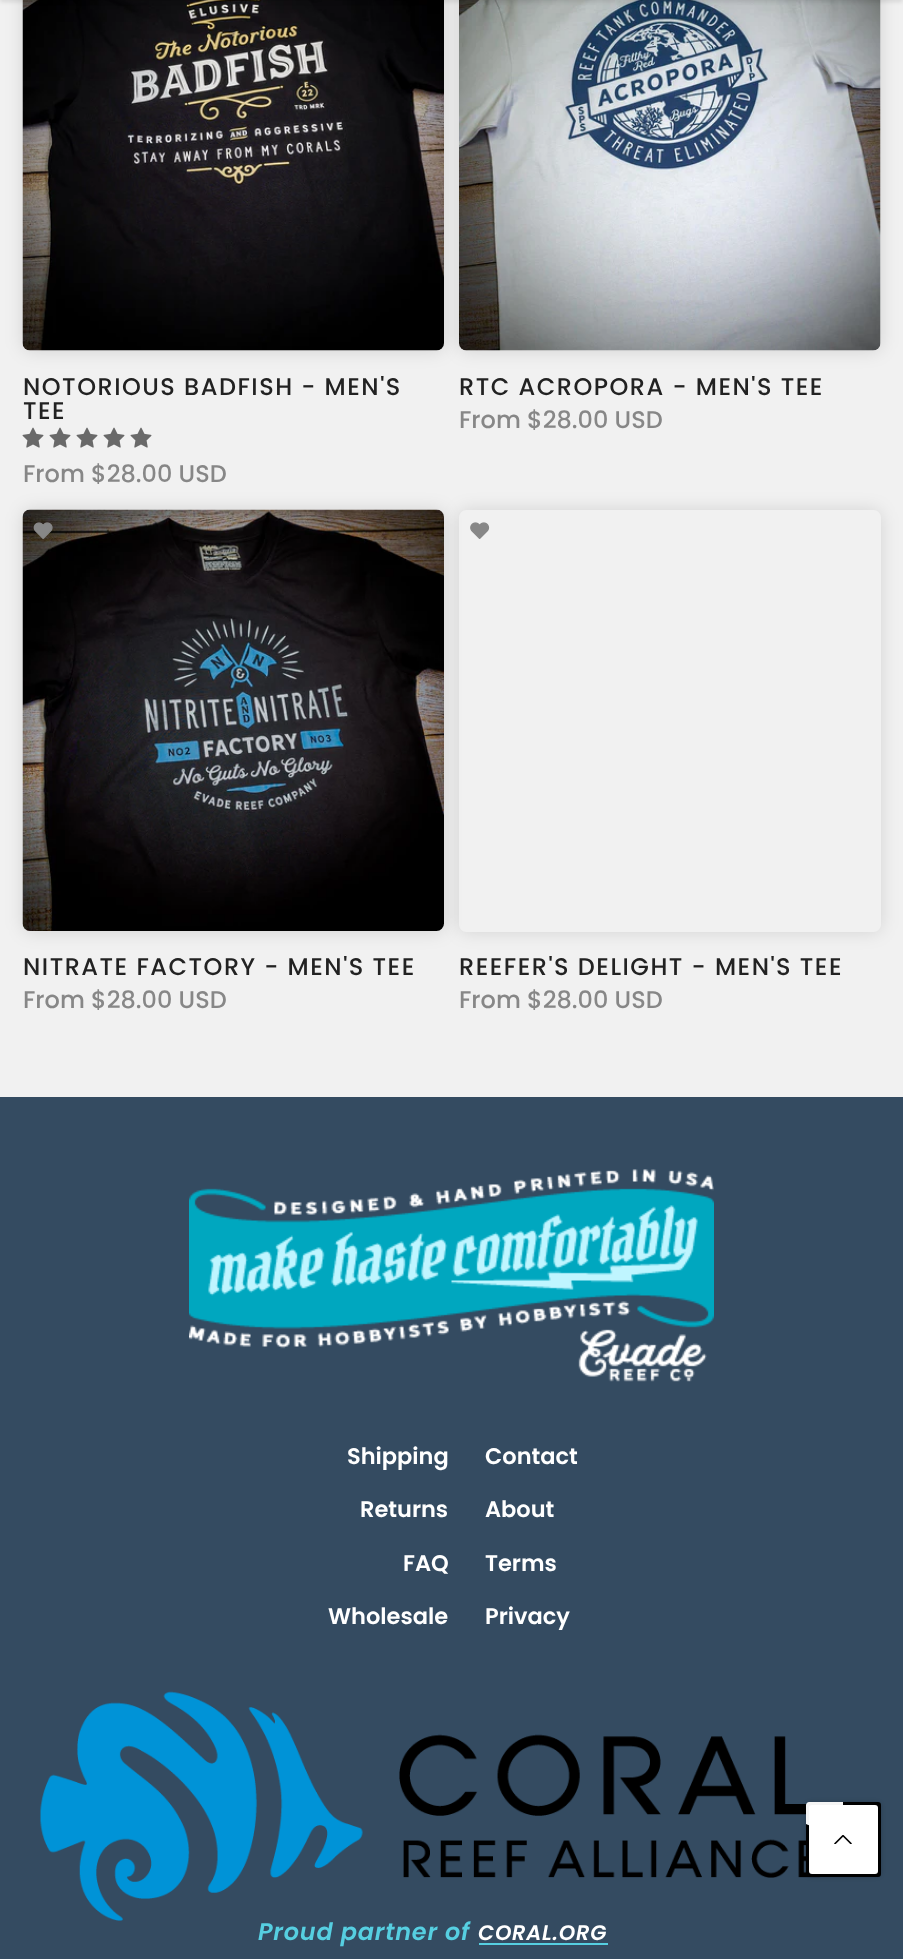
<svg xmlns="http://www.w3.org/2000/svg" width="903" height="1959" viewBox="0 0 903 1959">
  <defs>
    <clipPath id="clip1"><path d="M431 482H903V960H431ZM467 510H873C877.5 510 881 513.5 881 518V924C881 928.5 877.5 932 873 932H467C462.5 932 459 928.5 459 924V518C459 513.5 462.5 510 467 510Z" clip-rule="evenodd"/></clipPath>
  </defs>
  <rect width="100%" height="100%" fill="#f1f1f1"/>
  <rect x="23" y="-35" width="421" height="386" rx="8" fill="#0000001f" filter="blur(9px)"/>
  <image x="22" y="0" width="422" height="351" href="img/1.png"/>
  <rect x="459" y="-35" width="422" height="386" rx="8" fill="#0000001f" filter="blur(9px)"/>
  <image x="459" y="0" width="422" height="351" href="img/3.png"/>
  <path d="M0 -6h903v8H0z" fill="#0000001a" filter="blur(2px)"/>
  <image x="22" y="427" width="22" height="21" href="img/2.png"/>
  <image x="49" y="427" width="22" height="21" href="img/2.png"/>
  <image x="76" y="427" width="22" height="21" href="img/2.png"/>
  <image x="103" y="427" width="22" height="21" href="img/2.png"/>
  <image x="130" y="427" width="22" height="21" href="img/2.png"/>
  <rect x="23" y="510" width="421" height="422" rx="8" fill="#0000001f" filter="blur(9px)"/>
  <image x="22" y="509" width="422" height="422" href="img/4.png"/>
  <image x="33" y="522" width="20" height="17" href="img/5.png"/>
  <g clip-path="url(#clip1)">
    <rect x="459" y="510" width="422" height="422" rx="8" fill="#0000001f" filter="blur(9px)"/>
  </g>
  <image x="470" y="522" width="20" height="17" href="img/6.png"/>
  <path d="M0 1097h903v862H0z" fill="#344b61"/>
  <image x="189" y="1169" width="525" height="213" href="img/7.png"/>
  <image x="40" y="1691" width="781" height="230" href="img/8.png"/>
  <path d="M479 1943h129v2H479z" fill="#56cfe1"/>
  <rect x="806" y="1802" width="75" height="75" rx="5" fill="#00000033" filter="blur(2px)"/>
  <path d="M843 1839L806 1824V1874C806 1876 807 1877 809 1877H878C880 1877 881 1876 881 1874V1805C881 1803 880 1802 878 1802H843Z" fill="#000"/>
  <path d="M843 1839V1802H809C807.5 1802 806 1803.5 806 1805V1824Z" fill="#f5f5f5"/>
  <rect x="809" y="1805" width="69" height="69" rx="3" fill="#fff"/>
  <image x="834" y="1835" width="18" height="9" href="img/9.png"/>
  <g font-family="Poppins" font-size="24" font-weight="500" letter-spacing="1.5" fill="#222">
    <text x="23" y="395">NOTORIOUS BADFISH - MEN'S</text>
    <text x="23" y="419">TEE</text>
  </g>
  <text x="23" y="482" font-family="Poppins" font-size="24" font-weight="500" fill="#878787">From $28.00 USD</text>
  <text x="459" y="395" font-family="Poppins" font-size="24" font-weight="500" letter-spacing="1.5" fill="#222">RTC ACROPORA - MEN'S TEE</text>
  <text x="459" y="428" font-family="Poppins" font-size="24" font-weight="500" fill="#878787">From $28.00 USD</text>
  <text x="23" y="975" font-family="Poppins" font-size="24" font-weight="500" letter-spacing="1.5" fill="#222">NITRATE FACTORY - MEN'S TEE</text>
  <text x="23" y="1008" font-family="Poppins" font-size="24" font-weight="500" fill="#878787">From $28.00 USD</text>
  <text x="459" y="975" font-family="Poppins" font-size="24" font-weight="500" letter-spacing="1.5" fill="#222">REEFER'S DELIGHT - MEN'S TEE</text>
  <text x="459" y="1008" font-family="Poppins" font-size="24" font-weight="500" fill="#878787">From $28.00 USD</text>
  <g font-family="Poppins" font-size="22.5" font-weight="600" fill="#fff">
    <text x="347" y="1464">Shipping</text>
    <text x="360" y="1517">Returns</text>
    <text x="403" y="1571">FAQ</text>
    <text x="328" y="1624">Wholesale</text>
    <text x="485" y="1464">Contact</text>
    <text x="485" y="1517">About</text>
    <text x="485" y="1571">Terms</text>
    <text x="485" y="1624">Privacy</text>
  </g>
  <text x="258" y="1940" font-family="Poppins" font-size="24" font-weight="600" font-style="italic" letter-spacing="0.75" fill="#56cfe1">Proud partner of</text>
  <text x="478" y="1940" font-family="Poppins" font-size="21" font-weight="600" font-style="italic" letter-spacing="0.75" fill="#fff">CORAL.ORG</text>
</svg>
